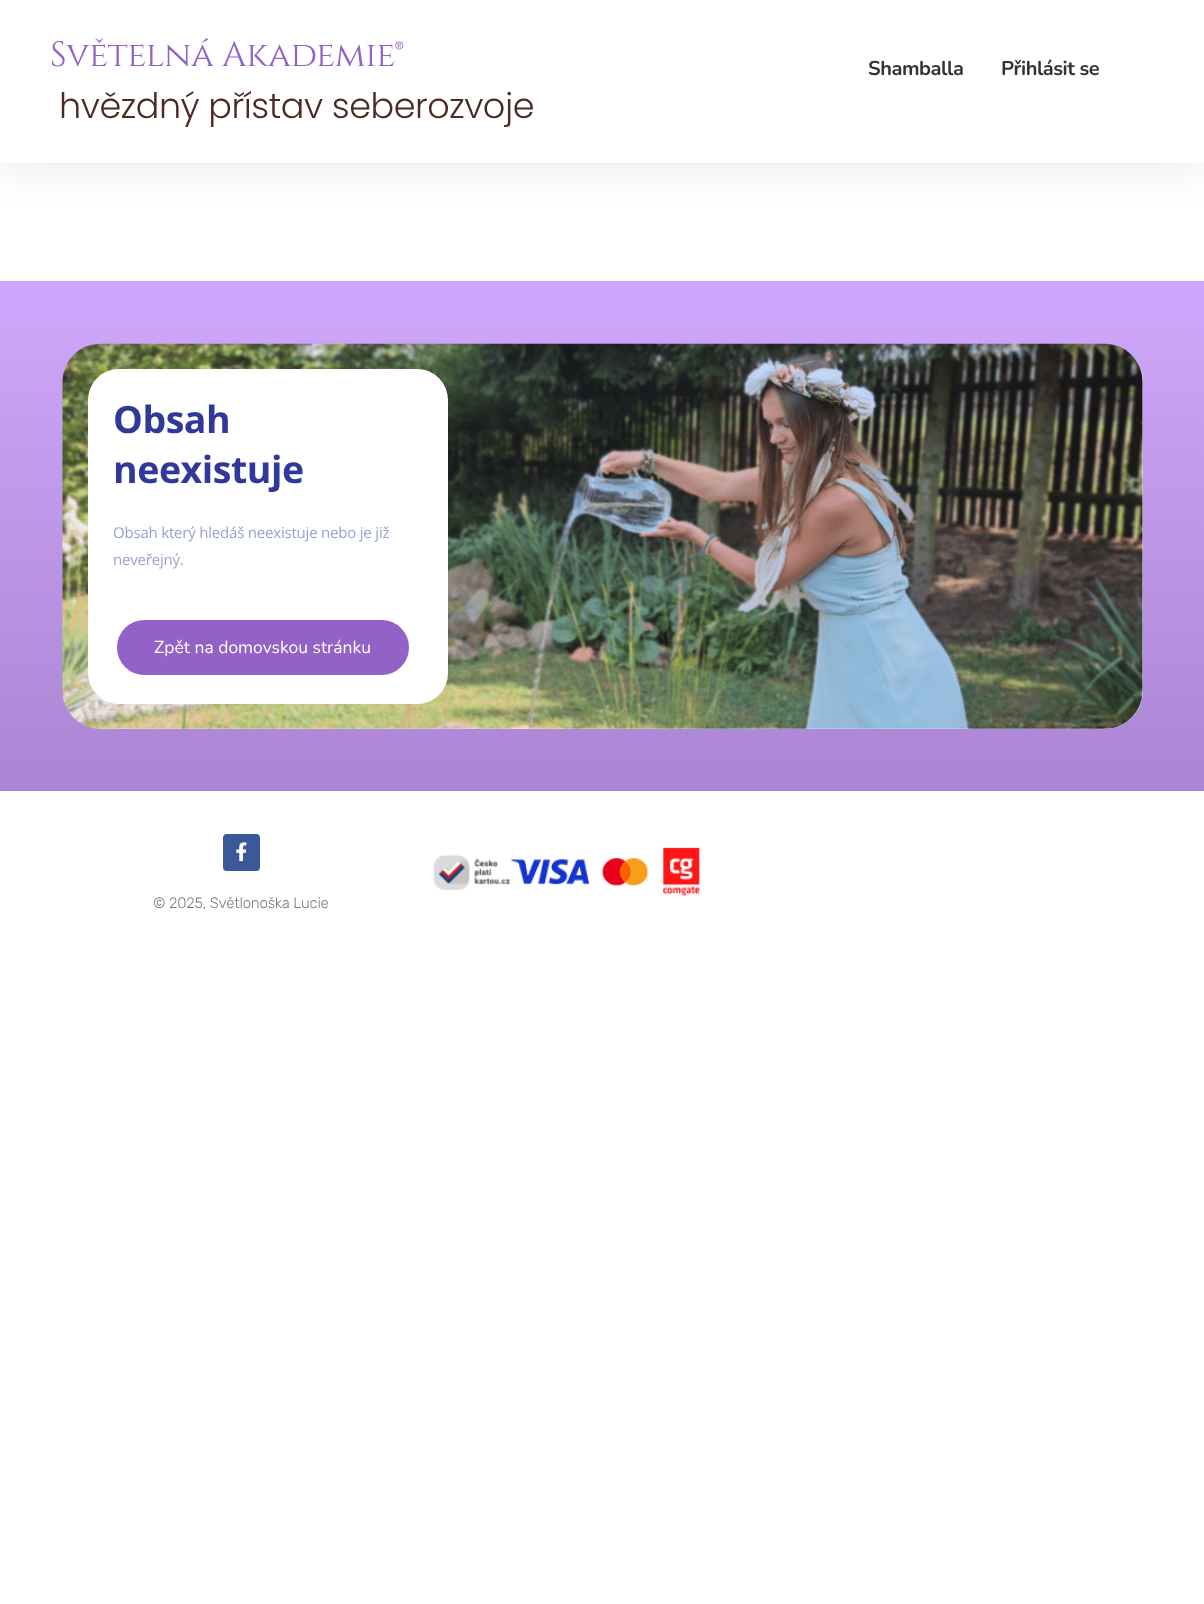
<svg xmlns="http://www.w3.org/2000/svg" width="1204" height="1604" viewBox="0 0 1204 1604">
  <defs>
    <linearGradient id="g1" gradientUnits="userSpaceOnUse" x1="603" y1="281" x2="603" y2="791"><stop offset="0" stop-color="#d0a7fc"/><stop offset="1" stop-color="#ab85d3"/></linearGradient>
  </defs>
  <rect width="100%" height="100%" fill="#fff"/>
  <path d="M0 0h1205v163H0z" fill="#0000001a" filter="blur(24px)"/>
  <path d="M0 0h1204v163H0z" fill="#fff"/>
  <path d="M0 281h1204v510H0z" fill="url(#g1)"/>
  <rect x="63" y="344" width="1080" height="385" rx="38" fill="#ebf9fc"/>
  <image x="62" y="343" width="1081" height="386" href="img/1.png"/>
  <rect x="88" y="369" width="360" height="335" rx="31" fill="#fff"/>
  <rect x="115" y="618" width="296" height="59" rx="29.5" fill="#9262c6" stroke="#fff" stroke-width="4"/>
  <image x="433" y="847" width="267" height="49" href="img/2.png"/>
  <rect x="223" y="834" width="37" height="37" rx="4" fill="#3b5998"/>
  <image x="236" y="842" width="11" height="20" href="img/3.png"/>
  <text x="50" y="66" font-family="Cinzel" font-size="35" letter-spacing="-0.45" fill="#9262c6">Světelná Akademie®</text>
  <text x="59" y="118" font-family="Poppins" font-size="35" font-weight="300" letter-spacing="-0.45" fill="#4c2923">hvězdný přístav seberozvoje</text>
  <g font-family="Nunito" font-size="20" font-weight="bold" letter-spacing="-0.45" fill="#333">
    <text x="868" y="75">Shamballa</text>
    <text x="1001" y="75">Přihlásit se</text>
  </g>
  <g font-family="Open Sans" font-size="37.5" font-weight="bold" letter-spacing="-0.45" fill="#30389a">
    <text x="113" y="433">Obsah</text>
    <text x="113" y="483">neexistuje</text>
  </g>
  <g font-family="Open Sans" font-size="15" letter-spacing="-0.2" fill="#98a2d0">
    <text x="113" y="538">Obsah který hledáš neexistuje nebo je již</text>
    <text x="113" y="565">neveřejný.</text>
  </g>
  <text x="154" y="653" font-family="Nunito" font-size="17.5" fill="#fff">Zpět na domovskou stránku</text>
  <text x="153" y="908" font-family="Rubik" font-size="15" font-weight="300" letter-spacing="-0.2" fill="#7a7a7a">© 2025, Světlonoška Lucie</text>
</svg>
